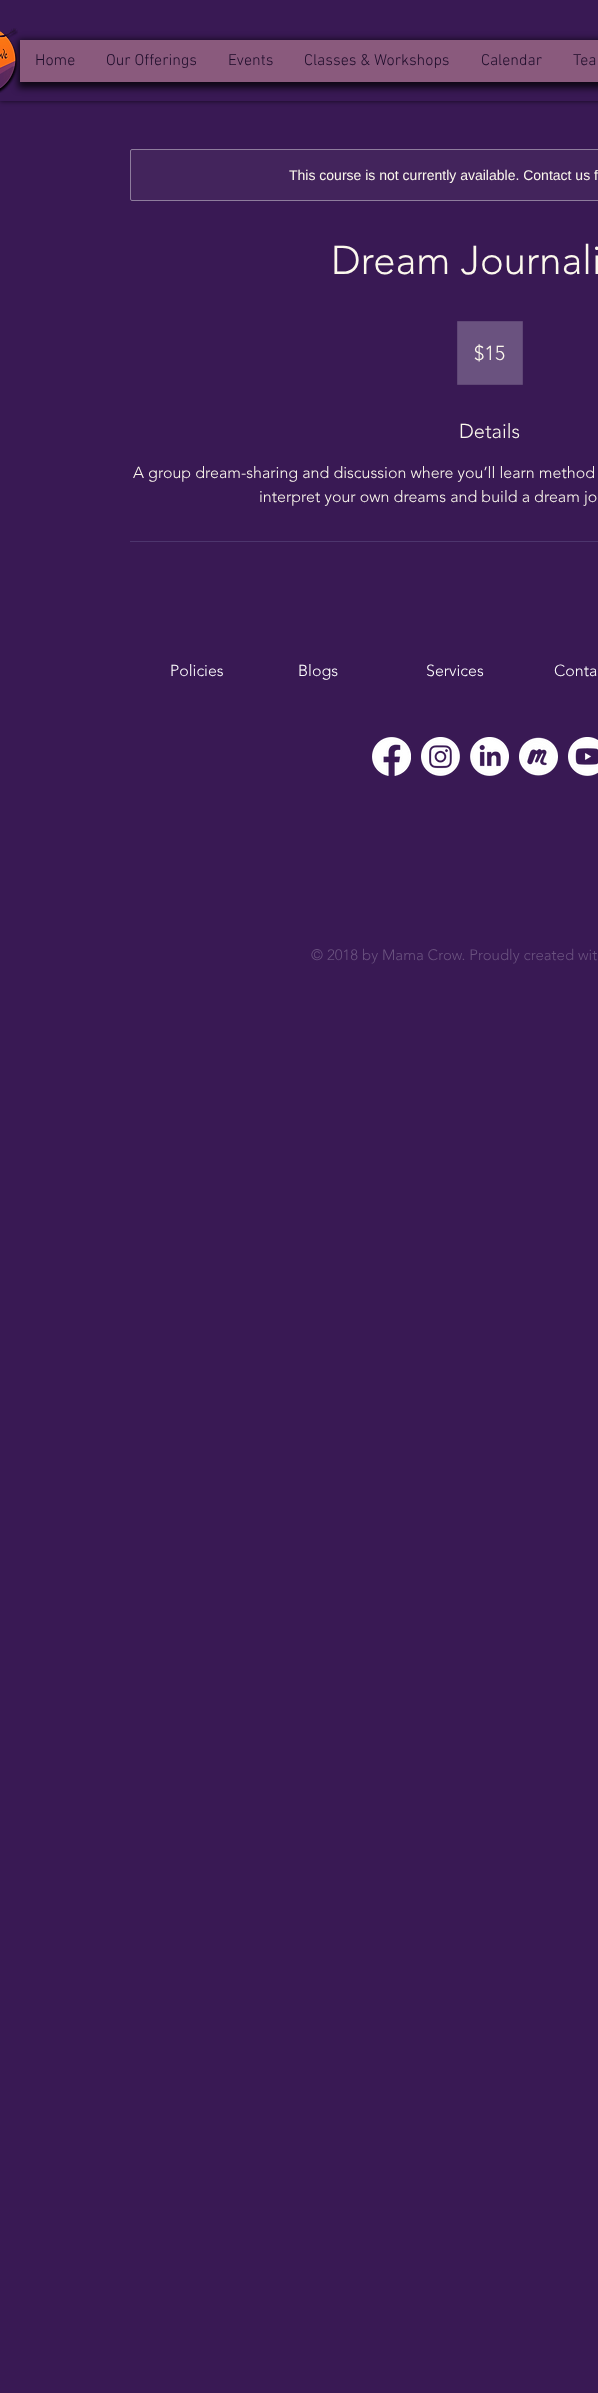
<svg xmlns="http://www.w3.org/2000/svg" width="598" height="2393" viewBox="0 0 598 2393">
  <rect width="100%" height="100%" fill="#391954"/>
  <path d="M0 0h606v101H0z" fill="#000000b3" filter="blur(2.5px)"/>
  <path d="M0 0h598v101H0z" fill="#391954"/>
  <path d="M18 40h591v48H18z" fill="#000000bf" filter="blur(3.5px)"/>
  <image x="0" y="28" width="18" height="65" href="img/1.png"/>
  <path d="M20 40h578v42H20z" fill="#8a5a7d"/>
  <rect x="130.5" y="149.5" width="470" height="51" rx="1.5" fill="#43245c" stroke="#8e7c9d"/>
  <path d="M457.5 321.5h65v63H457.5z" fill="#6a527f" stroke="#604776"/>
  <path d="M130 541h468v1H130z" fill="#4d356d"/>
  <image x="372" y="737" width="39" height="39" href="img/2.png"/>
  <image x="421" y="737" width="39" height="39" href="img/3.png"/>
  <image x="470" y="737" width="39" height="39" href="img/4.png"/>
  <image x="519" y="737" width="39" height="39" href="img/5.png"/>
  <image x="568" y="737" width="30" height="39" href="img/6.png"/>
  <g font-family="'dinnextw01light'" font-size="16" font-weight="300" fill="#1d0c2a">
    <text x="35" y="65">Home</text>
    <text x="106" y="65">Our Offerings</text>
    <text x="228" y="65">Events</text>
    <text x="304" y="65">Classes &amp; Workshops</text>
    <text x="481" y="65">Calendar</text>
    <text x="573" y="65">Tea</text>
  </g>
  <text x="289" y="180" font-family="Liberation Sans" font-size="14" fill="#fcf8ed">This course is not currently available. Contact us f</text>
  <text x="331" y="274" font-family="'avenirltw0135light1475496'" font-size="40" font-weight="300" fill="#fcf8ed">Dream Journali</text>
  <g font-family="'avenirltw0135light1475496'" font-size="20" font-weight="300" fill="#fcf8ed">
    <text x="474" y="360">$15</text>
    <text x="459" y="438">Details</text>
  </g>
  <g font-family="'avenirltw0135light1475496'" font-size="16" font-weight="300" fill="#fcf8ed">
    <text x="133" y="478">A group dream-sharing and discussion where you’ll learn method</text>
    <text x="259" y="502">interpret your own dreams and build a dream jo</text>
  </g>
  <g font-family="'avenirltw0135light1475496'" font-size="16" font-weight="300" fill="#fff">
    <text x="170" y="676">Policies</text>
    <text x="298" y="676">Blogs</text>
    <text x="426" y="676">Services</text>
    <text x="554" y="676">Conta</text>
  </g>
  <text x="311" y="960" font-family="'avenirltw0135light1475496'" font-size="15" font-weight="300" fill="#6a527f">© 2018 by Mama Crow. Proudly created wit</text>
</svg>
